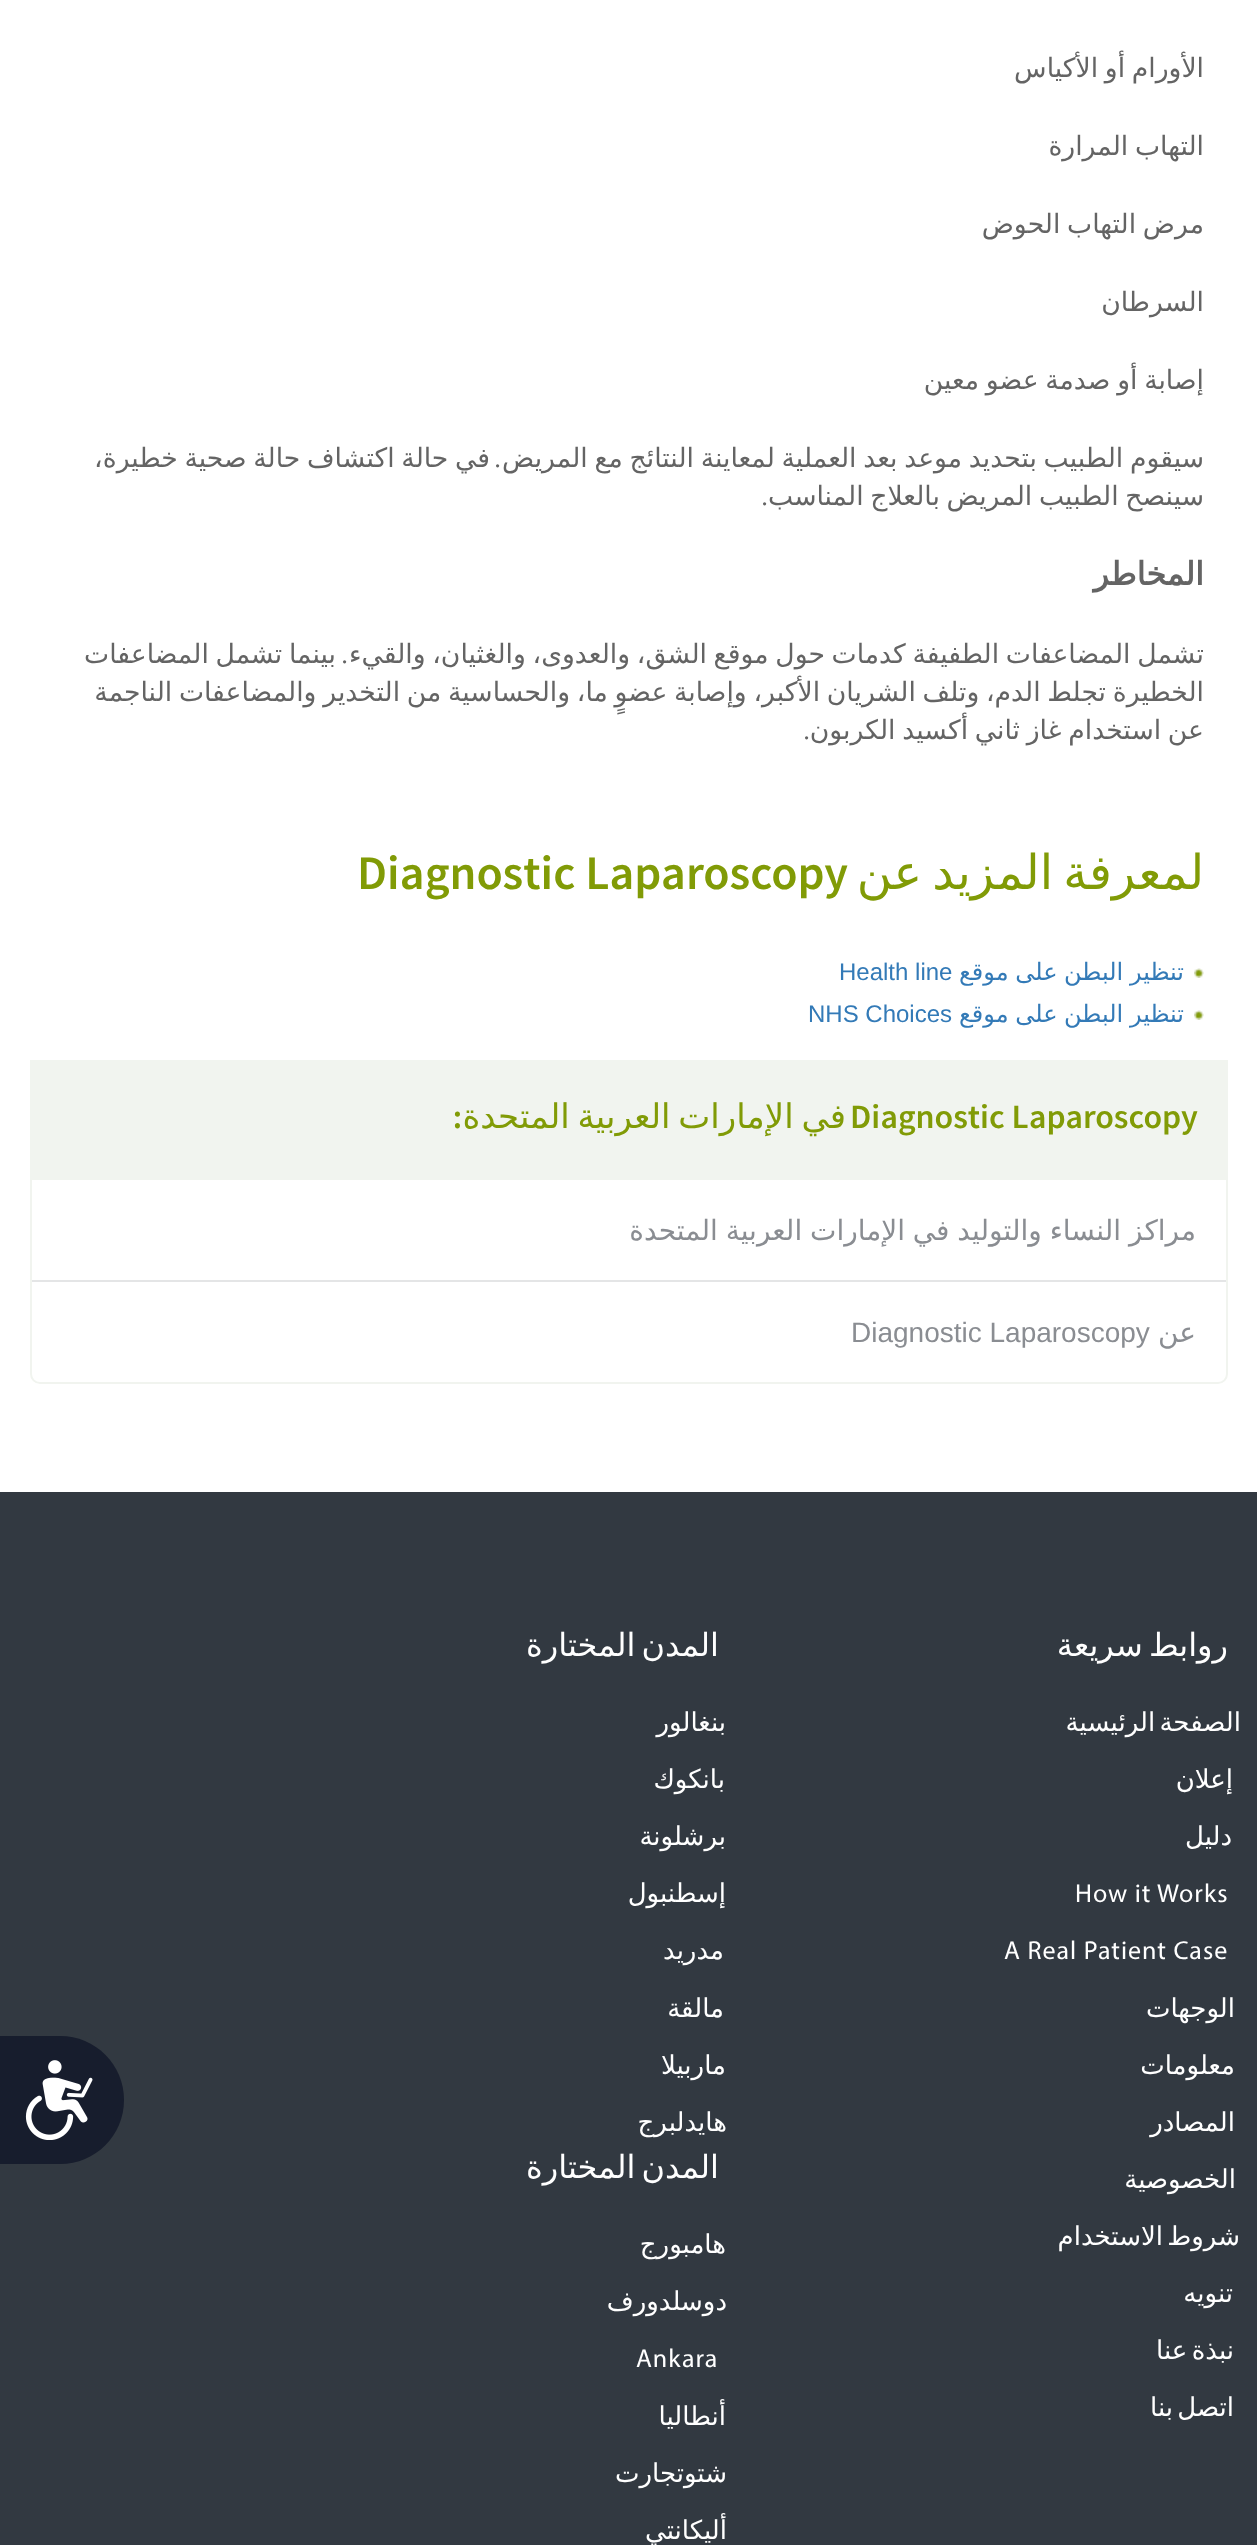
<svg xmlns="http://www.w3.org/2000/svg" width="1257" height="2545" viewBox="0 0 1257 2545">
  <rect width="100%" height="100%" fill="#fff"/>
  <image x="1194" y="968" width="10" height="10" href="img/1.png"/>
  <image x="1194" y="1010" width="10" height="10" href="img/1.png"/>
  <path d="M30 1060h1198v118H30z" fill="#f1f4ef"/>
  <path d="M31 1179H1227V1374C1227 1379 1223 1383 1218 1383H40C35 1383 31 1379 31 1374Z" fill="none" stroke="#f1f4ef" stroke-width="2"/>
  <path d="M32 1280h1194v2H32z" fill="#e4e5e6"/>
  <path d="M0 1492h1257v1053H0z" fill="#323941"/>
  <path d="M0 2036H60C95.5 2036 124 2064.5 124 2100C124 2135.5 95.5 2164 60 2164H0Z" fill="#171d2d"/>
  <image x="25" y="2060" width="68" height="80" href="img/2.png"/>
  <g font-family="DejaVu Sans" font-size="26.65" direction="rtl" fill="#646464">
    <text x="1204" y="77" word-spacing="-1.75">الأورام أو الأكياس</text>
    <text x="1204" y="155" word-spacing="-1.75">التهاب المرارة</text>
    <text x="1204" y="233" word-spacing="-1.75">مرض التهاب الحوض</text>
    <text x="1204" y="311">السرطان</text>
    <text x="1204" y="389" word-spacing="-1.75">إصابة أو صدمة عضو معين</text>
    <text x="1204" y="467" word-spacing="-1.75">سيقوم الطبيب بتحديد موعد بعد العملية لمعاينة النتائج مع المريض</text>
    <text x="490" y="467" word-spacing="-1.75">في حالة اكتشاف حالة صحية خطيرة،</text>
  </g>
  <text x="501" y="467" font-family="Liberation Serif" font-size="26.65" direction="rtl" fill="#646464">.</text>
  <text x="1204" y="505" word-spacing="-1.75" font-family="DejaVu Sans" font-size="26.65" direction="rtl" fill="#646464">سينصح الطبيب المريض بالعلاج المناسب</text>
  <text x="768" y="505" font-family="Liberation Serif" font-size="26.65" direction="rtl" fill="#646464">.</text>
  <text x="1204" y="585" font-family="DejaVu Sans" font-size="32" font-weight="bold" direction="rtl" fill="#646464">المخاطر</text>
  <text x="1204" y="663" word-spacing="-1.75" font-family="DejaVu Sans" font-size="26.65" direction="rtl" fill="#646464">تشمل المضاعفات الطفيفة كدمات حول موقع الشق، والعدوى، والغثيان، والقيء</text>
  <text x="348" y="663" font-family="Liberation Serif" font-size="26.65" direction="rtl" fill="#646464">.</text>
  <g font-family="DejaVu Sans" font-size="26.65" direction="rtl" fill="#646464">
    <text x="336" y="663" word-spacing="-1.75">بينما تشمل المضاعفات</text>
    <text x="1204" y="701" word-spacing="-1.75">الخطيرة تجلط الدم، وتلف الشريان الأكبر، وإصابة عضوٍ ما، والحساسية من التخدير والمضاعفات الناجمة</text>
    <text x="1204" y="739" word-spacing="-1.75">عن استخدام غاز ثاني أكسيد الكربون</text>
  </g>
  <text x="810" y="739" font-family="Liberation Serif" font-size="26.65" direction="rtl" fill="#646464">.</text>
  <text x="1204" y="889" word-spacing="-5" font-family="DejaVu Sans" font-size="48" direction="rtl" fill="#819b06">لمعرفة المزيد عن</text>
  <text x="357" y="889" font-family="Source Sans Pro" font-size="48" font-weight="600" fill="#819b06">Diagnostic Laparoscopy</text>
  <text x="1184" y="980" word-spacing="-1" font-family="DejaVu Sans" font-size="24" direction="rtl" fill="#337ab7">تنظير البطن على موقع</text>
  <text x="839" y="980" font-family="Liberation Sans" font-size="24" fill="#337ab7">Health line</text>
  <text x="1184" y="1022" word-spacing="-1" font-family="DejaVu Sans" font-size="24" direction="rtl" fill="#337ab7">تنظير البطن على موقع</text>
  <text x="808" y="1022" font-family="Liberation Sans" font-size="24" fill="#337ab7">NHS Choices</text>
  <text x="846" y="1128" word-spacing="-3" font-family="DejaVu Sans" font-size="34" direction="rtl" fill="#819b06">في الإمارات العربية المتحدة</text>
  <text x="850" y="1128" font-family="Source Sans Pro" font-size="34" font-weight="600" fill="#819b06">Diagnostic Laparoscopy</text>
  <text x="462" y="1128" font-family="Source Sans Pro" font-size="34" font-weight="600" direction="rtl" fill="#819b06">:</text>
  <g font-family="DejaVu Sans" font-size="28" direction="rtl" fill="#8a8d92">
    <text x="1196" y="1240" word-spacing="-1">مراكز النساء والتوليد في</text>
    <text x="905" y="1240" word-spacing="-1">الإمارات العربية المتحدة</text>
    <text x="1196" y="1342">عن</text>
  </g>
  <text x="851" y="1342" font-family="Liberation Sans" font-size="28" fill="#8a8d92">Diagnostic Laparoscopy</text>
  <text x="1228" y="1656" word-spacing="-4" font-family="DejaVu Sans" font-size="32" direction="rtl" fill="#fff">روابط سريعة</text>
  <g font-family="DejaVu Sans" font-size="26" letter-spacing="1" direction="rtl" fill="#fff">
    <text x="1241" y="1731" word-spacing="-4">الصفحة الرئيسية</text>
    <text x="1233" y="1788">إعلان</text>
    <text x="1232" y="1845">دليل</text>
  </g>
  <g font-family="Myriad" font-size="26" letter-spacing="1" fill="#fff">
    <text x="1075" y="1902">How it Works</text>
    <text x="1004" y="1959">A Real Patient Case</text>
  </g>
  <g font-family="DejaVu Sans" font-size="26" letter-spacing="1" direction="rtl" fill="#fff">
    <text x="1235" y="2017">الوجهات</text>
    <text x="1235" y="2074">معلومات</text>
    <text x="1235" y="2131">المصادر</text>
    <text x="1236" y="2188">الخصوصية</text>
    <text x="1240" y="2245" word-spacing="-4">شروط الاستخدام</text>
    <text x="1233" y="2302">تنويه</text>
    <text x="1234" y="2359" word-spacing="-4">نبذة عنا</text>
    <text x="1234" y="2416" word-spacing="-4">اتصل بنا</text>
  </g>
  <text x="719" y="1656" word-spacing="-4" font-family="DejaVu Sans" font-size="32" direction="rtl" fill="#fff">المدن المختارة</text>
  <g font-family="DejaVu Sans" font-size="26" letter-spacing="1" direction="rtl" fill="#fff">
    <text x="726" y="1731">بنغالور</text>
    <text x="725" y="1788">بانكوك</text>
    <text x="726" y="1845">برشلونة</text>
    <text x="726" y="1902">إسطنبول</text>
    <text x="724" y="1959">مدريد</text>
    <text x="724" y="2017">مالقة</text>
    <text x="726" y="2074">ماربيلا</text>
    <text x="727" y="2131">هايدلبرج</text>
  </g>
  <text x="719" y="2178" word-spacing="-4" font-family="DejaVu Sans" font-size="32" direction="rtl" fill="#fff">المدن المختارة</text>
  <g font-family="DejaVu Sans" font-size="26" letter-spacing="1" direction="rtl" fill="#fff">
    <text x="726" y="2253">هامبورج</text>
    <text x="727" y="2310">دوسلدورف</text>
  </g>
  <text x="636" y="2367" font-family="Myriad" font-size="26" letter-spacing="1" fill="#fff">Ankara</text>
  <g font-family="DejaVu Sans" font-size="26" letter-spacing="1" direction="rtl" fill="#fff">
    <text x="726" y="2425">أنطاليا</text>
    <text x="727" y="2482">شتوتجارت</text>
    <text x="727" y="2539">أليكانتي</text>
  </g>
</svg>
